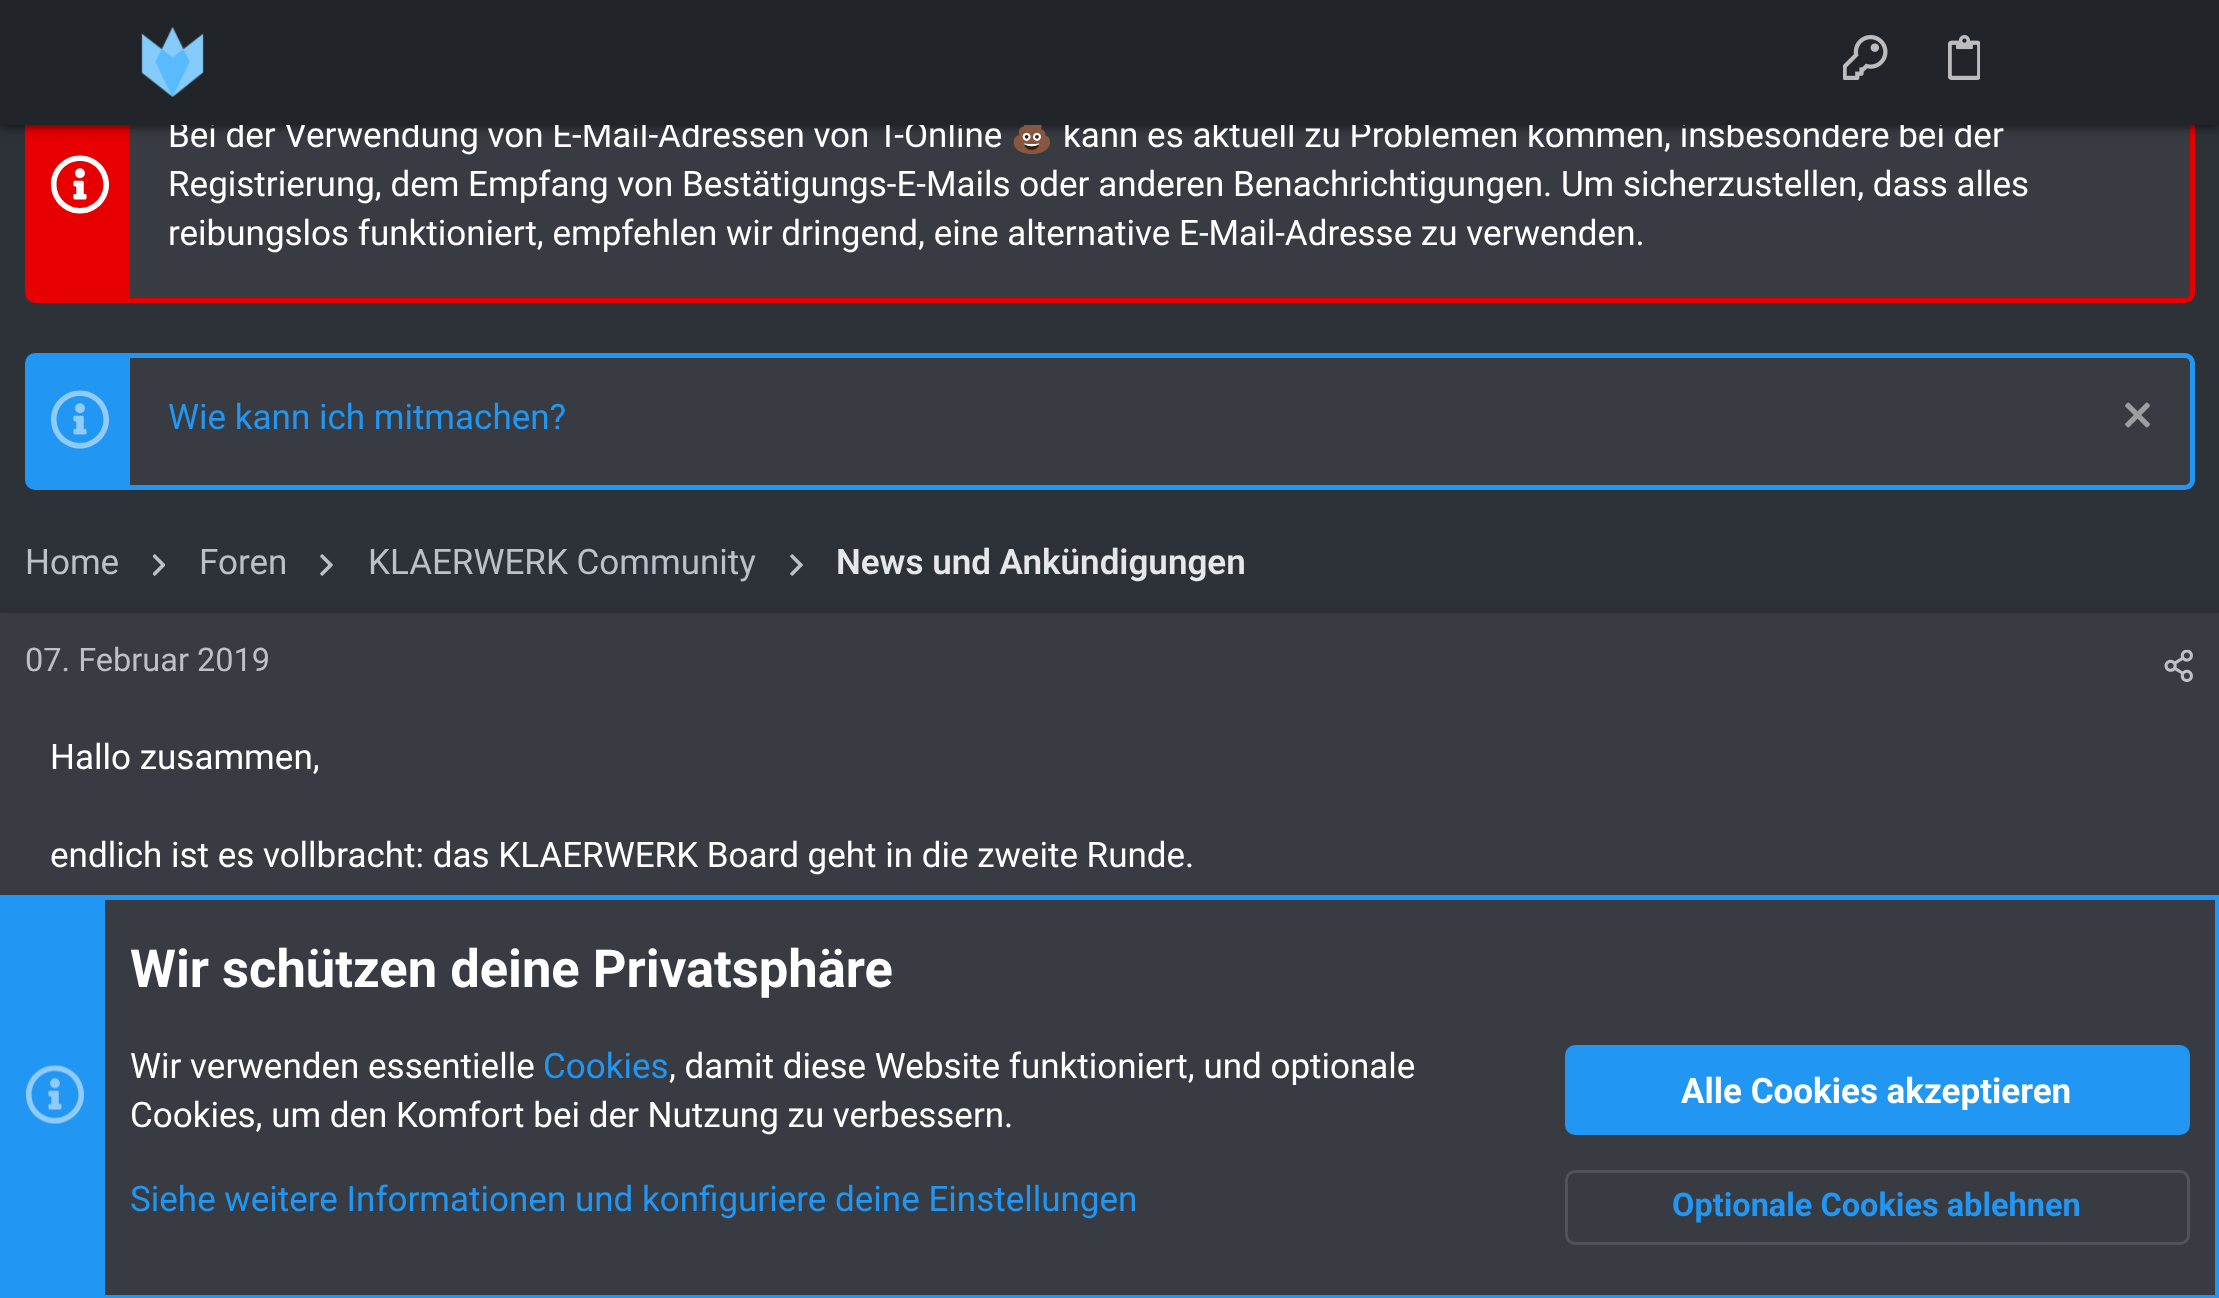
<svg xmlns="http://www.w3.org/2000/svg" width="2219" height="1298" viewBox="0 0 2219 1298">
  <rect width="100%" height="100%" fill="#2d3238"/>
  <rect x="27.5" y="72.5" width="2165" height="228" rx="7.5" fill="#383c42" stroke="#e60000" stroke-width="5"/>
  <path d="M30 125h100v173H30z" fill="#e60000"/>
  <path d="M0 3h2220v125H0z" fill="#00000033" filter="blur(6px)"/>
  <path d="M5 13h2210v115H5z" fill="#0000001f" filter="blur(1px)"/>
  <path d="M0 5h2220v125H0z" fill="#00000024" filter="blur(2.5px)"/>
  <image x="50" y="155" width="60" height="59" href="img/4.png"/>
  <rect x="27.5" y="355.5" width="2165" height="132" rx="7.5" fill="#383c42" stroke="#2196f3" stroke-width="5"/>
  <path d="M30 358h100v127H30z" fill="#2196f3"/>
  <image x="50" y="390" width="59" height="59" href="img/5.png"/>
  <image x="2125" y="402" width="25" height="26" href="img/6.png"/>
  <image x="153" y="554" width="12" height="22" href="img/7.png"/>
  <image x="320" y="554" width="13" height="22" href="img/8.png"/>
  <image x="790" y="554" width="13" height="22" href="img/8.png"/>
  <path d="M0 615h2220v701H0z" fill="#00000033" filter="blur(6px)"/>
  <path d="M0 613h2219v282H0z" fill="#383c42"/>
  <image x="2164" y="649" width="29" height="33" href="img/9.png"/>
  <path d="M105 900h2110v395H105z" fill="#383c42"/>
  <path d="M2.5 897.5h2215v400H2.5z" fill="none" stroke="#2196f3" stroke-width="5"/>
  <path d="M5 900h100v395H5z" fill="#2196f3"/>
  <image x="25" y="1065" width="59" height="59" href="img/10.png"/>
  <rect x="1565" y="1045" width="625" height="90" rx="10" fill="#2196f3"/>
  <rect x="1566.5" y="1171.5" width="622" height="72" rx="8.5" fill="none" stroke="#505359" stroke-width="3"/>
  <text x="168" y="147" font-family="Roboto" font-size="35" fill="#fff">Bei der Verwendung von E-Mail-Adressen von T-Online</text>
  <text x="1010" y="147" font-family="Noto Color Emoji" font-size="35" fill="#fff">💩</text>
  <text x="1063" y="147" font-family="Roboto" font-size="35" fill="#fff">kann es aktuell zu Problemen kommen, insbesondere bei der</text>
  <path d="M0 0h2219v125H0z" fill="#212428"/>
  <image x="1948" y="35" width="32" height="45" href="img/3.png"/>
  <image x="1843" y="35" width="45" height="45" href="img/2.png"/>
  <image x="141" y="27" width="63" height="70" href="img/1.png"/>
  <g font-family="Roboto" font-size="35" fill="#fff">
    <text x="168" y="196">Registrierung, dem Empfang von Bestätigungs-E-Mails oder anderen Benachrichtigungen. Um sicherzustellen, dass alles</text>
    <text x="168" y="245">reibungslos funktioniert, empfehlen wir dringend, eine alternative E-Mail-Adresse zu verwenden.</text>
  </g>
  <text x="168" y="429" font-family="Roboto" font-size="35" fill="#2196f3">Wie kann ich mitmachen?</text>
  <g font-family="Roboto" font-size="35" fill="#bcc0c7">
    <text x="25" y="574">Home</text>
    <text x="199" y="574">Foren</text>
    <text x="368" y="574">KLAERWERK Community</text>
  </g>
  <text x="836" y="574" font-family="Roboto" font-size="35" font-weight="600" fill="#e6e7ea">News und Ankündigungen</text>
  <text x="25" y="671" font-family="Roboto" font-size="32.5" fill="#bcc0c7">07. Februar 2019</text>
  <g font-family="Roboto" font-size="35" fill="#fff">
    <text x="50" y="769">Hallo zusammen,</text>
    <text x="50" y="867">endlich ist es vollbracht: das KLAERWERK Board geht in die zweite Runde.</text>
  </g>
  <text x="130" y="987" font-family="Roboto" font-size="52.5" font-weight="bold" fill="#fff">Wir schützen deine Privatsphäre</text>
  <text x="130" y="1078" font-family="Roboto" font-size="35" fill="#fff">Wir verwenden essentielle</text>
  <text x="543" y="1078" font-family="Roboto" font-size="35" fill="#2196f3">Cookies</text>
  <g font-family="Roboto" font-size="35" fill="#fff">
    <text x="669" y="1078">, damit diese Website funktioniert, und optionale</text>
    <text x="130" y="1127">Cookies, um den Komfort bei der Nutzung zu verbessern.</text>
  </g>
  <text x="130" y="1211" font-family="Roboto" font-size="35" fill="#2196f3">Siehe weitere Informationen und konfiguriere deine Einstellungen</text>
  <text x="1681" y="1103" font-family="Roboto" font-size="35" font-weight="bold" fill="#fff">Alle Cookies akzeptieren</text>
  <text x="1672" y="1216" font-family="Roboto" font-size="32.5" font-weight="bold" fill="#2196f3">Optionale Cookies ablehnen</text>
</svg>
